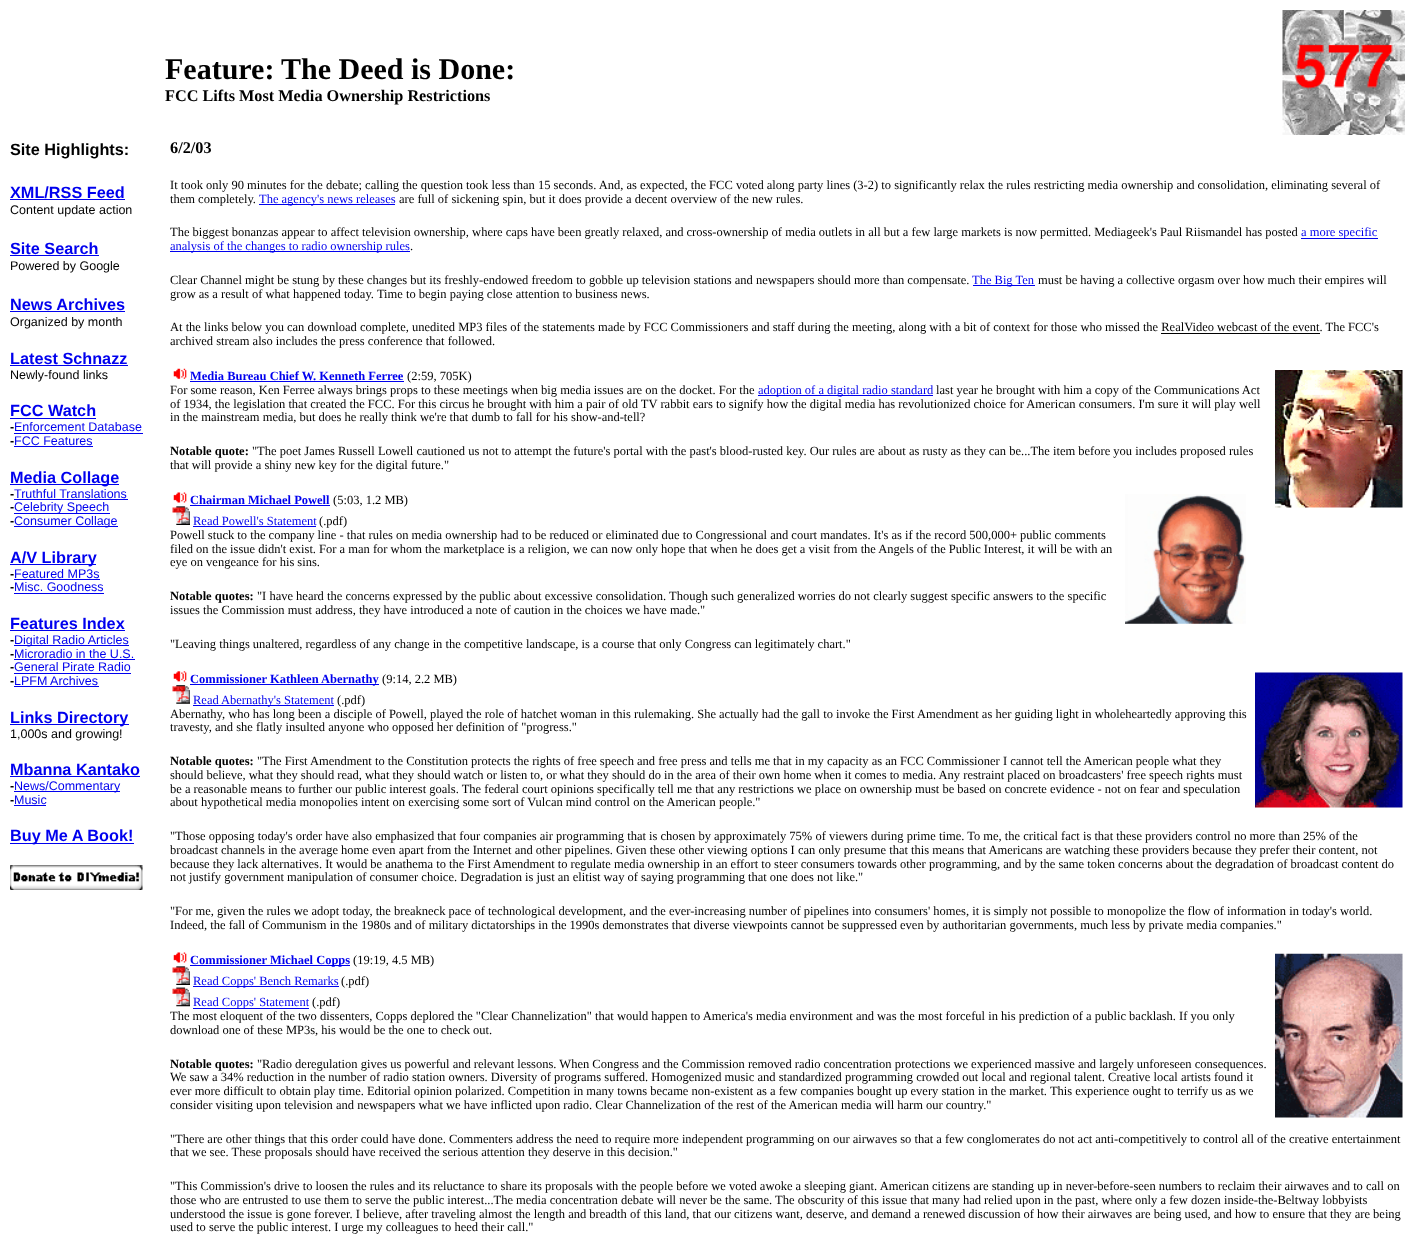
<svg xmlns="http://www.w3.org/2000/svg" width="1414" height="1242" viewBox="0 0 1414 1242">
  <rect width="100%" height="100%" fill="#fff"/>
  <image x="1282" y="10" width="123" height="125" href="img/1.png"/>
  <path d="M10 199h115v1H10z" fill="#00e"/>
  <path d="M10 255h89v1H10z" fill="#00e"/>
  <path d="M10 311h115v1H10z" fill="#00e"/>
  <path d="M10 365h118v1H10z" fill="#00e"/>
  <path d="M10 418h86v1H10z" fill="#00e"/>
  <path d="M14 433h129v1H14z" fill="#00e"/>
  <path d="M14 446h79v1H14z" fill="#00e"/>
  <path d="M10 484h109v1H10z" fill="#00e"/>
  <path d="M14 499h114v1H14z" fill="#00e"/>
  <path d="M14 513h96v1H14z" fill="#00e"/>
  <path d="M14 526h104v1H14z" fill="#00e"/>
  <path d="M10 564h86v1H10z" fill="#00e"/>
  <path d="M14 579h86v1H14z" fill="#00e"/>
  <path d="M14 593h90v1H14z" fill="#00e"/>
  <path d="M10 630h115v1H10z" fill="#00e"/>
  <path d="M14 645h115v1H14z" fill="#00e"/>
  <path d="M14 659h121v1H14z" fill="#00e"/>
  <path d="M14 673h117v1H14z" fill="#00e"/>
  <path d="M14 686h85v1H14z" fill="#00e"/>
  <path d="M10 724h119v1H10z" fill="#00e"/>
  <path d="M10 776h130v1H10z" fill="#00e"/>
  <path d="M14 791h106v1H14z" fill="#00e"/>
  <path d="M14 805h32v1H14z" fill="#00e"/>
  <path d="M10 843h124v1H10z" fill="#00e"/>
  <image x="10" y="865" width="133" height="25" href="img/2.png"/>
  <path d="M259 204h136v1H259z" fill="#00e"/>
  <path d="M1301 238h77v1H1301z" fill="#00e"/>
  <path d="M170 251h240v1H170z" fill="#00e"/>
  <path d="M973 285h62v1H973z" fill="#00e"/>
  <path d="M1161 333h159v1H1161z" fill="#000"/>
  <image x="173" y="368" width="14" height="11" href="img/3.png"/>
  <path d="M190 381h214v1H190z" fill="#00e"/>
  <image x="1275" y="370" width="128" height="138" href="img/4.png"/>
  <path d="M758 395h175v1H758z" fill="#00e"/>
  <image x="173" y="492" width="14" height="11" href="img/5.png"/>
  <path d="M190 505h140v1H190z" fill="#00e"/>
  <image x="1125" y="494" width="121" height="130" href="img/6.png"/>
  <image x="172" y="506" width="18" height="19" href="img/7.png"/>
  <path d="M193 526h123v1H193z" fill="#00e"/>
  <image x="173" y="671" width="14" height="11" href="img/8.png"/>
  <path d="M190 684h189v1H190z" fill="#00e"/>
  <image x="1255" y="672" width="148" height="136" href="img/9.png"/>
  <image x="172" y="685" width="18" height="19" href="img/10.png"/>
  <path d="M193 705h141v1H193z" fill="#00e"/>
  <image x="173" y="952" width="14" height="11" href="img/5.png"/>
  <path d="M190 965h160v1H190z" fill="#00e"/>
  <image x="1275" y="953" width="128" height="165" href="img/11.png"/>
  <image x="172" y="966" width="18" height="19" href="img/7.png"/>
  <path d="M193 986h146v1H193z" fill="#00e"/>
  <image x="172" y="987" width="18" height="20" href="img/12.png"/>
  <path d="M193 1008h116v1H193z" fill="#00e"/>
  <g font-family="Liberation Serif" font-size="30" font-weight="bold" fill="#000">
    <text x="165" y="79">Feature:</text>
    <text x="281" y="79">The Deed is Done:</text>
  </g>
  <text x="165" y="101" font-family="Liberation Serif" font-size="16.25" font-weight="bold" fill="#000">FCC Lifts Most Media Ownership Restrictions</text>
  <text x="10" y="155" font-family="Liberation Sans" font-size="16.25" font-weight="bold" fill="#000">Site Highlights:</text>
  <text x="10" y="198" font-family="Liberation Sans" font-size="16.25" font-weight="bold" fill="#00e">XML/RSS Feed</text>
  <text x="10" y="214" font-family="Liberation Sans" font-size="12.5" fill="#000">Content update action</text>
  <text x="10" y="254" font-family="Liberation Sans" font-size="16.25" font-weight="bold" fill="#00e">Site Search</text>
  <text x="10" y="270" font-family="Liberation Sans" font-size="12.5" fill="#000">Powered by Google</text>
  <text x="10" y="310" font-family="Liberation Sans" font-size="16.25" font-weight="bold" fill="#00e">News Archives</text>
  <text x="10" y="326" font-family="Liberation Sans" font-size="12.5" fill="#000">Organized by month</text>
  <text x="10" y="364" font-family="Liberation Sans" font-size="16.25" font-weight="bold" fill="#00e">Latest Schnazz</text>
  <text x="10" y="379" font-family="Liberation Sans" font-size="12.5" fill="#000">Newly-found links</text>
  <text x="10" y="416" font-family="Liberation Sans" font-size="16.25" font-weight="bold" fill="#00e">FCC Watch</text>
  <text x="10" y="431" font-family="Liberation Sans" font-size="12.5" font-weight="bold" fill="#000">-</text>
  <text x="14" y="431" font-family="Liberation Sans" font-size="12.5" fill="#00e">Enforcement Database</text>
  <text x="10" y="445" font-family="Liberation Sans" font-size="12.5" font-weight="bold" fill="#000">-</text>
  <text x="14" y="445" font-family="Liberation Sans" font-size="12.5" fill="#00e">FCC Features</text>
  <text x="10" y="483" font-family="Liberation Sans" font-size="16.25" font-weight="bold" fill="#00e">Media Collage</text>
  <text x="10" y="498" font-family="Liberation Sans" font-size="12.5" font-weight="bold" fill="#000">-</text>
  <text x="14" y="498" font-family="Liberation Sans" font-size="12.5" fill="#00e">Truthful Translations</text>
  <text x="10" y="511" font-family="Liberation Sans" font-size="12.5" font-weight="bold" fill="#000">-</text>
  <text x="14" y="511" font-family="Liberation Sans" font-size="12.5" fill="#00e">Celebrity Speech</text>
  <text x="10" y="525" font-family="Liberation Sans" font-size="12.5" font-weight="bold" fill="#000">-</text>
  <text x="14" y="525" font-family="Liberation Sans" font-size="12.5" fill="#00e">Consumer Collage</text>
  <text x="10" y="563" font-family="Liberation Sans" font-size="16.25" font-weight="bold" fill="#00e">A/V Library</text>
  <text x="10" y="578" font-family="Liberation Sans" font-size="12.5" font-weight="bold" fill="#000">-</text>
  <text x="14" y="578" font-family="Liberation Sans" font-size="12.5" fill="#00e">Featured MP3s</text>
  <text x="10" y="591" font-family="Liberation Sans" font-size="12.5" font-weight="bold" fill="#000">-</text>
  <text x="14" y="591" font-family="Liberation Sans" font-size="12.5" fill="#00e">Misc. Goodness</text>
  <text x="10" y="629" font-family="Liberation Sans" font-size="16.25" font-weight="bold" fill="#00e">Features Index</text>
  <text x="10" y="644" font-family="Liberation Sans" font-size="12.5" font-weight="bold" fill="#000">-</text>
  <text x="14" y="644" font-family="Liberation Sans" font-size="12.5" fill="#00e">Digital Radio Articles</text>
  <text x="10" y="658" font-family="Liberation Sans" font-size="12.5" font-weight="bold" fill="#000">-</text>
  <text x="14" y="658" font-family="Liberation Sans" font-size="12.5" fill="#00e">Microradio in the U.S.</text>
  <text x="10" y="671" font-family="Liberation Sans" font-size="12.5" font-weight="bold" fill="#000">-</text>
  <text x="14" y="671" font-family="Liberation Sans" font-size="12.5" fill="#00e">General Pirate Radio</text>
  <text x="10" y="685" font-family="Liberation Sans" font-size="12.5" font-weight="bold" fill="#000">-</text>
  <text x="14" y="685" font-family="Liberation Sans" font-size="12.5" fill="#00e">LPFM Archives</text>
  <text x="10" y="723" font-family="Liberation Sans" font-size="16.25" font-weight="bold" fill="#00e">Links Directory</text>
  <text x="10" y="738" font-family="Liberation Sans" font-size="12.5" fill="#000">1,000s and growing!</text>
  <text x="10" y="775" font-family="Liberation Sans" font-size="16.25" font-weight="bold" fill="#00e">Mbanna Kantako</text>
  <text x="10" y="790" font-family="Liberation Sans" font-size="12.5" font-weight="bold" fill="#000">-</text>
  <text x="14" y="790" font-family="Liberation Sans" font-size="12.5" fill="#00e">News/Commentary</text>
  <text x="10" y="804" font-family="Liberation Sans" font-size="12.5" font-weight="bold" fill="#000">-</text>
  <text x="14" y="804" font-family="Liberation Sans" font-size="12.5" fill="#00e">Music</text>
  <text x="10" y="841" font-family="Liberation Sans" font-size="16.25" font-weight="bold" fill="#00e">Buy Me A Book!</text>
  <text x="170" y="153" font-family="Liberation Serif" font-size="16.25" font-weight="bold" fill="#000">6/2/03</text>
  <g font-family="Liberation Serif" font-size="12.5" fill="#000">
    <text x="170" y="189">It took only 90 minutes for the debate; calling the question took less than 15 seconds. And, as expected, the FCC voted along party lines (3-2) to significantly relax the rules restricting media ownership and consolidation, eliminating several of</text>
    <text x="170" y="203">them completely.</text>
  </g>
  <text x="259" y="203" font-family="Liberation Serif" font-size="12.5" fill="#00e">The agency's news releases</text>
  <g font-family="Liberation Serif" font-size="12.5" fill="#000">
    <text x="399" y="203">are full of sickening spin, but it does provide a decent overview of the new rules.</text>
    <text x="170" y="236">The biggest bonanzas appear to affect television ownership, where caps have been greatly relaxed, and cross-ownership of media outlets in all but a few large markets is now permitted. Mediageek's Paul Riismandel has posted</text>
  </g>
  <g font-family="Liberation Serif" font-size="12.5" fill="#00e">
    <text x="1301" y="236">a more specific</text>
    <text x="170" y="250">analysis of the changes to radio ownership rules</text>
  </g>
  <g font-family="Liberation Serif" font-size="12.5" fill="#000">
    <text x="410" y="250">.</text>
    <text x="170" y="284">Clear Channel might be stung by these changes but its freshly-endowed freedom to gobble up television stations and newspapers should more than compensate.</text>
  </g>
  <text x="972" y="284" font-family="Liberation Serif" font-size="12.5" fill="#00e">The Big Ten</text>
  <g font-family="Liberation Serif" font-size="12.5" fill="#000">
    <text x="1038" y="284">must be having a collective orgasm over how much their empires will</text>
    <text x="170" y="298">grow as a result of what happened today. Time to begin paying close attention to business news.</text>
    <text x="170" y="331">At the links below you can download complete, unedited MP3 files of the statements made by FCC Commissioners and staff during the meeting, along with a bit of context for those who missed the RealVideo webcast of the event. The FCC's</text>
    <text x="170" y="345">archived stream also includes the press conference that followed.</text>
  </g>
  <text x="190" y="380" font-family="Liberation Serif" font-size="12.5" font-weight="bold" fill="#00e">Media Bureau Chief W. Kenneth Ferree</text>
  <g font-family="Liberation Serif" font-size="12.5" fill="#000">
    <text x="407" y="380">(2:59, 705K)</text>
    <text x="170" y="394">For some reason, Ken Ferree always brings props to these meetings when big media issues are on the docket. For the</text>
  </g>
  <text x="758" y="394" font-family="Liberation Serif" font-size="12.5" fill="#00e">adoption of a digital radio standard</text>
  <g font-family="Liberation Serif" font-size="12.5" fill="#000">
    <text x="936" y="394">last year he brought with him a copy of the Communications Act</text>
    <text x="170" y="408">of 1934, the legislation that created the FCC. For this circus he brought with him a pair of old TV rabbit ears to signify how the digital media has revolutionized choice for American consumers. I'm sure it will play well</text>
    <text x="170" y="421">in the mainstream media, but does he really think we're that dumb to fall for his show-and-tell?</text>
  </g>
  <text x="170" y="455" font-family="Liberation Serif" font-size="12.5" font-weight="bold" fill="#000">Notable quote:</text>
  <g font-family="Liberation Serif" font-size="12.5" fill="#000">
    <text x="252" y="455">"The poet James Russell Lowell cautioned us not to attempt the future's portal with the past's blood-rusted key. Our rules are about as rusty as they can be...The item before you includes proposed rules</text>
    <text x="170" y="469">that will provide a shiny new key for the digital future."</text>
  </g>
  <text x="190" y="504" font-family="Liberation Serif" font-size="12.5" font-weight="bold" fill="#00e">Chairman Michael Powell</text>
  <text x="333" y="504" font-family="Liberation Serif" font-size="12.5" fill="#000">(5:03, 1.2 MB)</text>
  <text x="193" y="525" font-family="Liberation Serif" font-size="12.5" fill="#00e">Read Powell's Statement</text>
  <g font-family="Liberation Serif" font-size="12.5" fill="#000">
    <text x="319" y="525">(.pdf)</text>
    <text x="170" y="539">Powell stuck to the company line - that rules on media ownership had to be reduced or eliminated due to Congressional and court mandates. It's as if the record 500,000+ public comments</text>
    <text x="170" y="553">filed on the issue didn't exist. For a man for whom the marketplace is a religion, we can now only hope that when he does get a visit from the Angels of the Public Interest, it will be with an</text>
    <text x="170" y="566">eye on vengeance for his sins.</text>
  </g>
  <text x="170" y="600" font-family="Liberation Serif" font-size="12.5" font-weight="bold" fill="#000">Notable quotes:</text>
  <g font-family="Liberation Serif" font-size="12.5" fill="#000">
    <text x="257" y="600">"I have heard the concerns expressed by the public about excessive consolidation. Though such generalized worries do not clearly suggest specific answers to the specific</text>
    <text x="170" y="614">issues the Commission must address, they have introduced a note of caution in the choices we have made."</text>
    <text x="170" y="648">"Leaving things unaltered, regardless of any change in the competitive landscape, is a course that only Congress can legitimately chart."</text>
  </g>
  <text x="190" y="683" font-family="Liberation Serif" font-size="12.5" font-weight="bold" fill="#00e">Commissioner Kathleen Abernathy</text>
  <text x="382" y="683" font-family="Liberation Serif" font-size="12.5" fill="#000">(9:14, 2.2 MB)</text>
  <g font-family="Liberation Serif" font-size="12.5" fill="#00e">
    <text x="193" y="704">Read</text>
    <text x="221" y="704">Abernathy's Statement</text>
  </g>
  <g font-family="Liberation Serif" font-size="12.5" fill="#000">
    <text x="337" y="704">(.pdf)</text>
    <text x="170" y="718">Abernathy, who has long been a disciple of Powell, played the role of hatchet woman in this rulemaking. She actually had the gall to invoke the First Amendment as her guiding light in wholeheartedly approving this</text>
    <text x="170" y="731">travesty, and she flatly insulted anyone who opposed her definition of "progress."</text>
  </g>
  <text x="170" y="765" font-family="Liberation Serif" font-size="12.5" font-weight="bold" fill="#000">Notable quotes:</text>
  <g font-family="Liberation Serif" font-size="12.5" fill="#000">
    <text x="257" y="765">"The First</text>
    <text x="310" y="765">Amendment to the Constitution protects the rights of free speech and free press and tells me that in my capacity as an FCC Commissioner I cannot tell the American people what they</text>
    <text x="170" y="779">should believe, what they should read, what they should watch or listen to, or what they should do in the area of their own home when it comes to media. Any restraint placed on broadcasters' free speech rights must</text>
    <text x="170" y="793">be a reasonable means to further our public interest goals. The federal court opinions specifically tell me that any restrictions we place on ownership must be based on concrete evidence - not on fear and speculation</text>
    <text x="170" y="806">about hypothetical media monopolies intent on exercising some sort of Vulcan mind control on the American people."</text>
    <text x="170" y="840">"Those opposing today's order have also emphasized that four companies air programming that is chosen by approximately 75% of viewers during prime time. To me, the critical fact is that these providers control no more than 25% of the</text>
    <text x="170" y="854">broadcast channels in the average home even apart from the Internet and other pipelines. Given these other viewing options I can only presume that this means that Americans are watching these providers because they prefer their content, not</text>
    <text x="170" y="868">because they lack alternatives. It would be anathema to the First Amendment to regulate media ownership in an effort to steer consumers towards other programming, and by the same token concerns about the degradation of broadcast content do</text>
    <text x="170" y="881">not justify government manipulation of consumer choice. Degradation is just an elitist way of saying programming that one does not like."</text>
    <text x="170" y="915">"For me, given the rules we adopt today, the breakneck pace of technological development, and the ever-increasing number of pipelines into consumers' homes, it is simply not possible to monopolize the flow of information in today's world.</text>
    <text x="170" y="929">Indeed, the fall of Communism in the 1980s and of military dictatorships in the 1990s demonstrates that diverse viewpoints cannot be suppressed even by authoritarian governments, much less by private media companies."</text>
  </g>
  <text x="190" y="964" font-family="Liberation Serif" font-size="12.5" font-weight="bold" fill="#00e">Commissioner Michael Copps</text>
  <text x="353" y="964" font-family="Liberation Serif" font-size="12.5" fill="#000">(19:19, 4.5 MB)</text>
  <text x="193" y="985" font-family="Liberation Serif" font-size="12.5" fill="#00e">Read Copps' Bench Remarks</text>
  <text x="341" y="985" font-family="Liberation Serif" font-size="12.5" fill="#000">(.pdf)</text>
  <text x="193" y="1006" font-family="Liberation Serif" font-size="12.5" fill="#00e">Read Copps' Statement</text>
  <g font-family="Liberation Serif" font-size="12.5" fill="#000">
    <text x="312" y="1006">(.pdf)</text>
    <text x="170" y="1020">The most eloquent of the two dissenters, Copps deplored the "Clear Channelization" that would happen to America's media environment and was the most forceful in his prediction of a public backlash. If you only</text>
    <text x="170" y="1034">download one of these MP3s, his would be the one to check out.</text>
  </g>
  <text x="170" y="1068" font-family="Liberation Serif" font-size="12.5" font-weight="bold" fill="#000">Notable quotes:</text>
  <g font-family="Liberation Serif" font-size="12.5" fill="#000">
    <text x="257" y="1068">"Radio deregulation gives us powerful and relevant lessons. When Congress and the Commission removed radio concentration protections we experienced massive and largely unforeseen consequences.</text>
    <text x="170" y="1081">We saw a 34% reduction in the number of radio station owners. Diversity of programs suffered. Homogenized music and standardized programming crowded out local and regional talent. Creative local artists found it</text>
    <text x="170" y="1095">ever more difficult to obtain play time. Editorial opinion polarized. Competition in many towns became non-existent as a few companies bought up every station in the market. This experience ought to terrify us as we</text>
    <text x="170" y="1109">consider visiting upon television and newspapers what we have inflicted upon radio. Clear Channelization of the rest of the American media will harm our country."</text>
    <text x="170" y="1143">"There are other things that this order could have done. Commenters address the need to require more independent programming on our airwaves so that a few conglomerates do not act anti-competitively to control all of the creative entertainment</text>
    <text x="170" y="1156">that we see. These proposals should have received the serious attention they deserve in this decision."</text>
    <text x="170" y="1190">"This Commission's drive to loosen the rules and its reluctance to share its proposals with the people before we voted awoke a sleeping giant. American citizens are standing up in never-before-seen numbers to reclaim their airwaves and to call on</text>
    <text x="170" y="1204">those who are entrusted to use them to serve the public interest...The media concentration debate will never be the same. The obscurity of this issue that many had relied upon in the past, where only a few dozen inside-the-Beltway lobbyists</text>
    <text x="170" y="1218">understood the issue is gone forever. I believe, after traveling almost the length and breadth of this land, that our citizens want, deserve, and demand a renewed discussion of how their airwaves are being used, and how to ensure that they are being</text>
    <text x="170" y="1231">used to serve the public interest. I urge my colleagues to heed their call."</text>
  </g>
</svg>
